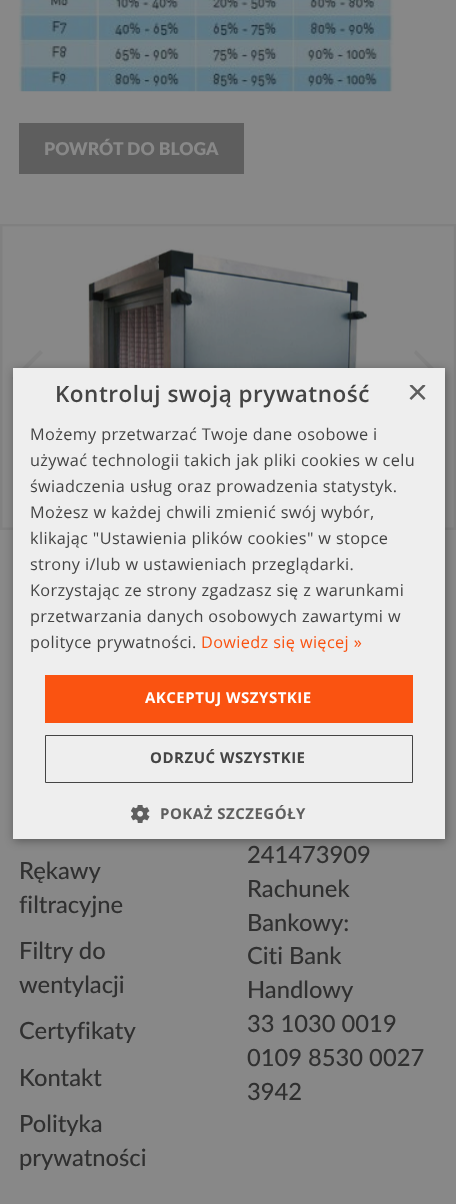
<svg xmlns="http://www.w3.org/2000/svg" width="456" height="1204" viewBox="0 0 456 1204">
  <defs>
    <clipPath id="clip1"><path d="M408 385h18v19H408z"/></clipPath>
  </defs>
  <rect width="100%" height="100%" fill="#888"/>
  <image x="18" y="0" width="376" height="92" href="img/1.png"/>
  <path d="M19 123h225v51H19z" fill="#5e5e5e"/>
  <path d="M1.5 225.5h453v303H1.5z" fill="none" stroke="#808080" stroke-width="3"/>
  <image x="2" y="226" width="452" height="302" href="img/2.png"/>
  <path d="M12 378L40 350L43 353L18 378L43 402L40 405Z" fill="#818181"/>
  <path d="M444 378L416 405L414 402L438 378L414 353L416 350Z" fill="#818181"/>
  <path d="M14 370h432v471H14z" fill="#00000059" filter="blur(5px)"/>
  <path d="M13 368h432v471H13z" fill="#eee"/>
  <path d="M45 675h368v48H45z" fill="#fa5311"/>
  <path d="M45.5 735.5h367v47H45.5z" fill="none" stroke="#444"/>
  <image x="131" y="805" width="19" height="18" href="img/3.png"/>
  <text x="44" y="155" font-family="Lato" font-size="17.5" font-weight="900" fill="#888">POWRÓT DO BLOGA</text>
  <text x="55" y="402" font-family="Open Sans" font-size="22.5" font-weight="600" letter-spacing="0.5" fill="#444">Kontroluj swoją prywatność</text>
  <g clip-path="url(#clip1)">
    <text x="407" y="404" font-family="Liberation Sans" font-size="36" fill="#5e5e5e">×</text>
  </g>
  <g font-family="Open Sans" font-size="16.25" letter-spacing="0.38" fill="#444">
    <text x="30" y="440">Możemy przetwarzać Twoje dane osobowe i</text>
    <text x="30" y="466">używać technologii takich jak pliki cookies w celu</text>
    <text x="30" y="492">świadczenia usług oraz prowadzenia statystyk.</text>
    <text x="30" y="518">Możesz w każdej chwili zmienić swój wybór,</text>
    <text x="30" y="544">klikając "Ustawienia plików cookies" w stopce</text>
    <text x="30" y="570">strony i/lub w ustawieniach przeglądarki.</text>
    <text x="30" y="596">Korzystając ze strony zgadzasz się z warunkami</text>
    <text x="30" y="622">przetwarzania danych osobowych zawartymi w</text>
    <text x="30" y="648">polityce prywatności.</text>
  </g>
  <text x="201" y="648" font-family="Open Sans" font-size="16.25" letter-spacing="0.38" fill="#fa5311">Dowiedz się więcej »</text>
  <text x="145" y="703" font-family="Open Sans" font-size="15" font-weight="bold" letter-spacing="0.5" fill="#fff">AKCEPTUJ WSZYSTKIE</text>
  <text x="150" y="763" font-family="Open Sans" font-size="15" font-weight="bold" letter-spacing="0.5" fill="#444">ODRZUĆ WSZYSTKIE</text>
  <text x="160" y="819" font-family="Open Sans" font-size="15" font-weight="bold" letter-spacing="0.5" fill="#5e5e5e">POKAŻ SZCZEGÓŁY</text>
  <g font-family="Lato" font-size="23.75" font-weight="500" fill="#303030">
    <text x="19" y="879">Rękawy</text>
    <text x="19" y="913">filtracyjne</text>
    <text x="19" y="959">Filtry do</text>
    <text x="19" y="993">wentylacji</text>
    <text x="19" y="1039">Certyfikaty</text>
    <text x="19" y="1086">Kontakt</text>
    <text x="19" y="1132">Polityka</text>
    <text x="19" y="1166">prywatności</text>
    <text x="247" y="863">241473909</text>
    <text x="247" y="897">Rachunek</text>
    <text x="247" y="931">Bankowy:</text>
    <text x="247" y="964">Citi Bank</text>
    <text x="247" y="998">Handlowy</text>
    <text x="247" y="1032">33 1030 0019</text>
    <text x="247" y="1066">0109 8530 0027</text>
    <text x="247" y="1100">3942</text>
  </g>
</svg>
